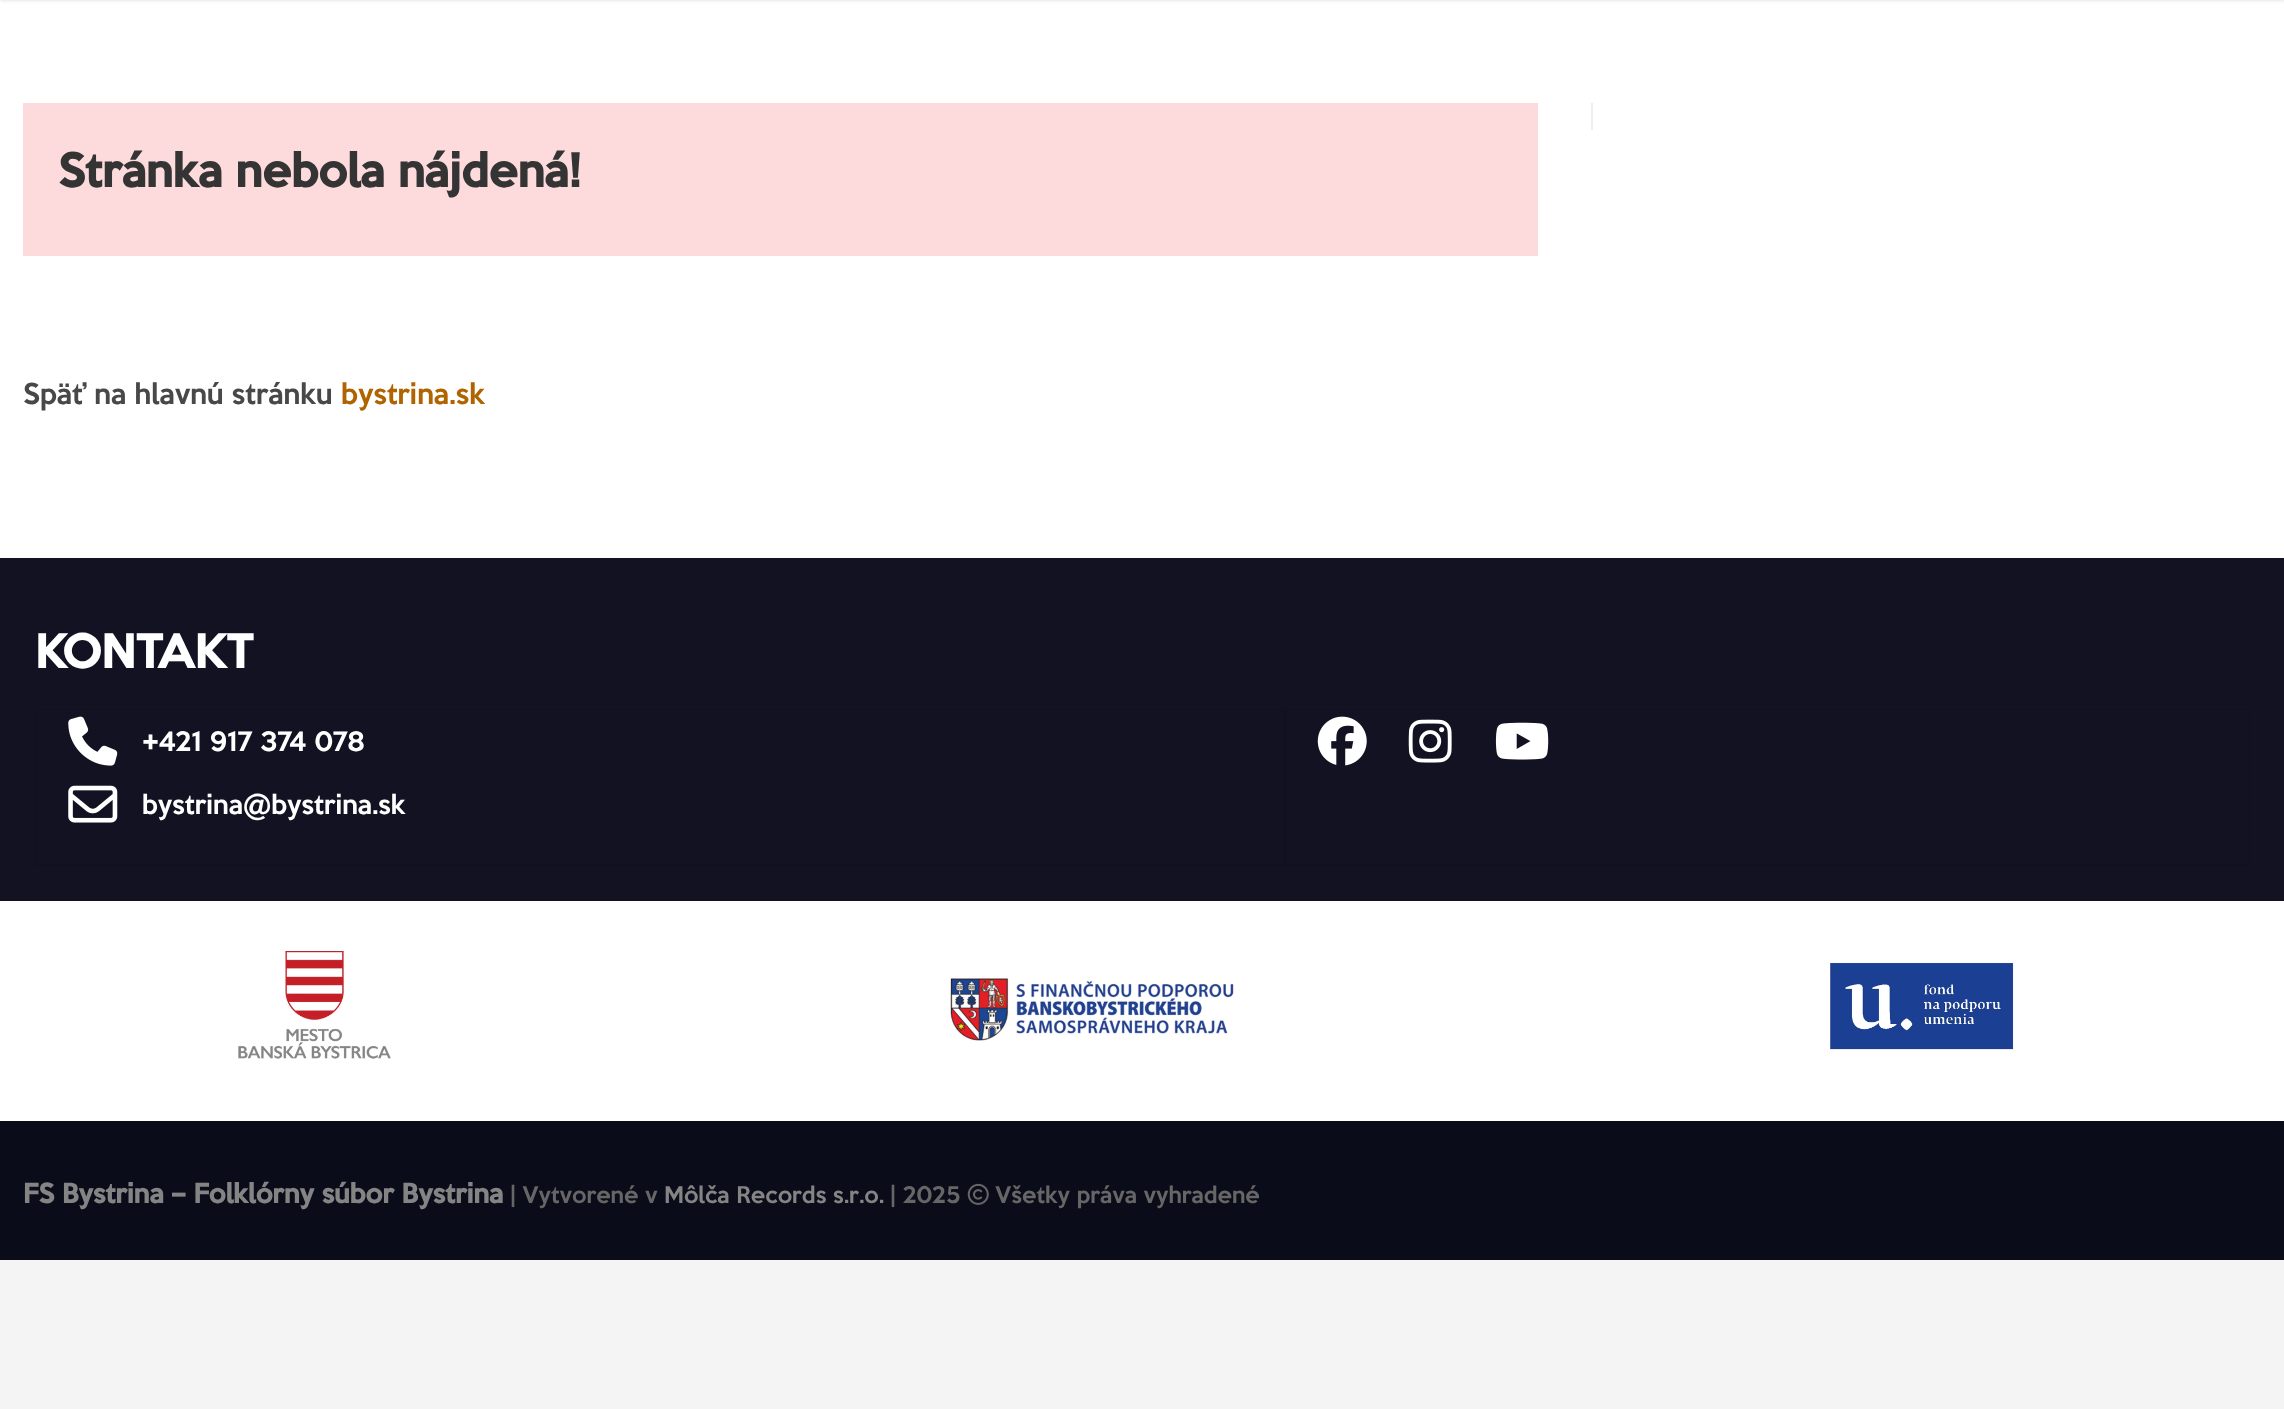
<svg xmlns="http://www.w3.org/2000/svg" width="2284" height="1409" viewBox="0 0 2284 1409">
  <rect width="100%" height="100%" fill="#f4f4f4"/>
  <path d="M0 0h2284v1121H0z" fill="#fff"/>
  <path d="M0 -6h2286v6H0z" fill="#00000026" filter="blur(2px)"/>
  <path d="M1591 103h2v27H1591z" fill="#eee"/>
  <path d="M23 103h1515v153H23z" fill="#fddbdd"/>
  <path d="M0 558h2284v343H0z" fill="#121222"/>
  <path d="M35 709H2250V710H37Z" fill="#10101f"/>
  <path d="M35 866V709L37 710V866Z" fill="#10101f"/>
  <path d="M1286 710V866L1284 864V710Z" fill="#10101f"/>
  <path d="M1286 866H37V864H1284Z" fill="#10101f"/>
  <image x="68" y="716" width="50" height="50" href="img/1.png"/>
  <image x="68" y="785" width="50" height="38" href="img/2.png"/>
  <path d="M2250 710V866L2249 864V710Z" fill="#10101f"/>
  <path d="M2250 866H1286V864H2249Z" fill="#10101f"/>
  <image x="1317" y="716" width="50" height="50" href="img/3.png"/>
  <image x="1408" y="719" width="44" height="44" href="img/4.png"/>
  <image x="1495" y="722" width="54" height="38" href="img/5.png"/>
  <image x="238" y="950" width="153" height="109" href="img/6.png"/>
  <image x="950" y="978" width="284" height="63" href="img/7.png"/>
  <image x="1830" y="962" width="184" height="88" href="img/8.png"/>
  <path d="M0 1121h2284v139H0z" fill="#0a0c19"/>
  <image x="967" y="1183" width="22" height="22" href="img/9.png"/>
  <text x="58" y="187" font-family="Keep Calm" font-size="42" font-weight="bold" fill="#343434">Stránka nebola nájdená!</text>
  <text x="23" y="404" font-family="Keep Calm" font-size="26.25" font-weight="500" fill="#484848">Späť na hlavnú stránku</text>
  <text x="341" y="404" font-family="Keep Calm" font-size="26.25" font-weight="500" fill="#b06400">bystrina.sk</text>
  <text x="35" y="668" font-family="Keep Calm" font-size="42" font-weight="bold" fill="#fff">KONTAKT</text>
  <g font-family="Keep Calm" font-size="24.5" font-weight="500" fill="#fff">
    <text x="142" y="751">+421 917 374 078</text>
    <text x="142" y="814">bystrina@bystrina.sk</text>
  </g>
  <text x="23" y="1203" font-family="Keep Calm" font-size="24.5" font-weight="bold" fill="#848484">FS Bystrina – Folklórny súbor Bystrina</text>
  <text x="510" y="1203" font-family="Keep Calm" font-size="21" font-weight="500" fill="#666">| Vytvorené v</text>
  <text x="664" y="1203" font-family="Keep Calm" font-size="21" font-weight="500" fill="#848484">Môlča Records s.r.o.</text>
  <g font-family="Keep Calm" font-size="21" font-weight="500" fill="#666">
    <text x="890" y="1203">| 2025</text>
    <text x="995" y="1203">Všetky práva vyhradené</text>
  </g>
</svg>
